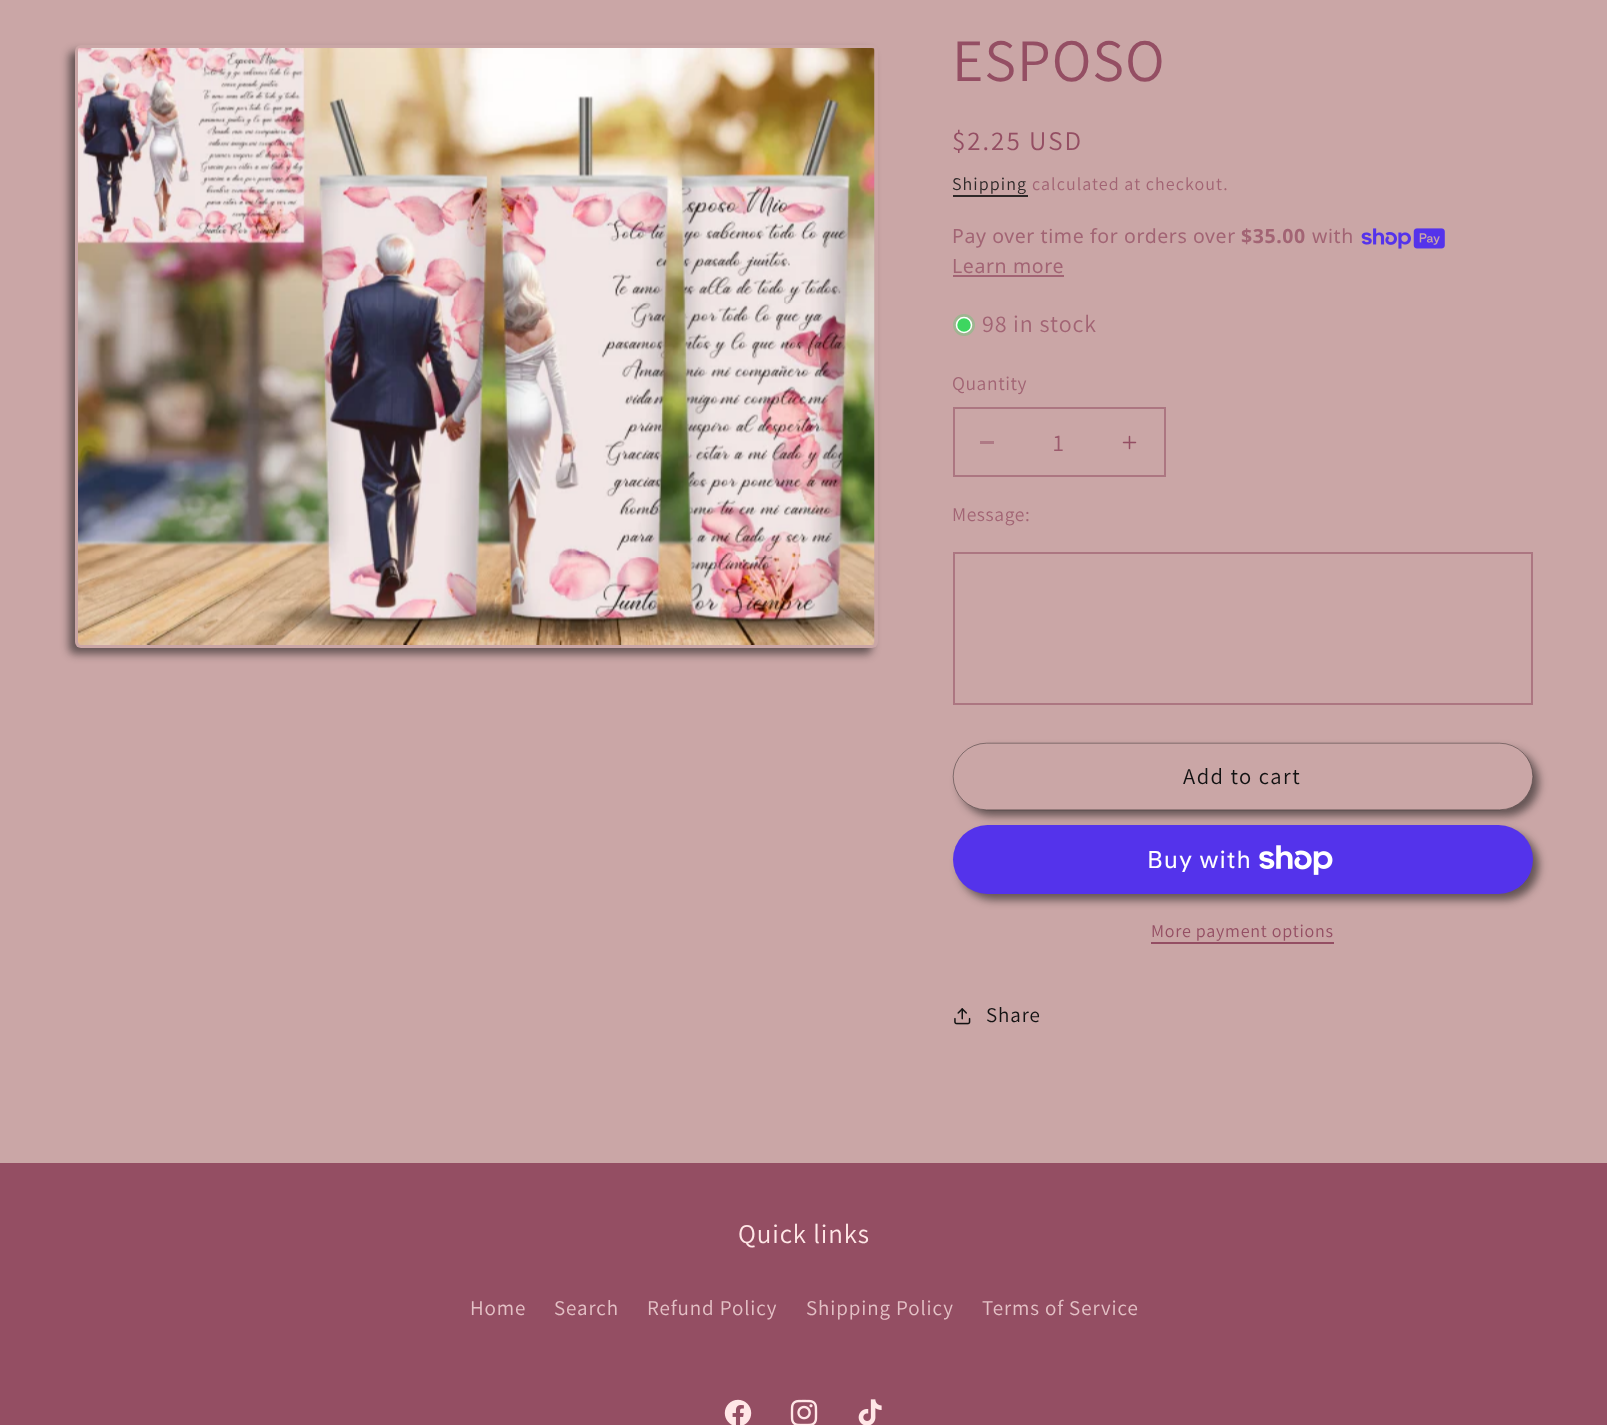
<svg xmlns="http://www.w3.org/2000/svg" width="1607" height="1425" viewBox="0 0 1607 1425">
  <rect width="100%" height="100%" fill="#caa6a6"/>
  <rect x="69" y="51" width="803" height="603" rx="6" fill="#1212128c" filter="blur(4px)"/>
  <rect x="75" y="45" width="803" height="603" rx="6" fill="#caa6a6"/>
  <image x="78" y="48" width="797" height="597" href="img/1.png"/>
  <path d="M953 195h75v2H953z" fill="#2e2828"/>
  <image x="1361" y="228" width="84" height="21" href="img/2.png"/>
  <path d="M953 275h111v2H953z" fill="#a26474"/>
  <circle cx="964" cy="325" r="11" fill="#a0b491"/>
  <circle cx="964" cy="325" r="7.5" fill="#3ed660" stroke="#fff" stroke-width="1.5"/>
  <path d="M980 441h14v3H980z" fill="#af7a85"/>
  <image x="1122" y="435" width="15" height="15" href="img/3.png"/>
  <path d="M954 408h211v68H954z" fill="none" stroke="#ac7681" stroke-width="2"/>
  <path d="M954 553h578v151H954z" fill="none" stroke="#ac7681" stroke-width="2"/>
  <rect x="959" y="749" width="580" height="67" rx="33.5" fill="#1212128c" filter="blur(4px)"/>
  <rect x="953" y="743" width="580" height="67" rx="33.5" fill="#caa6a6"/>
  <rect x="953.2" y="743.2" width="579.6" height="66.6" rx="33.3" fill="none" stroke="#121212" stroke-width="0.4"/>
  <rect x="959" y="831" width="580" height="69" rx="34.5" fill="#1212128c" filter="blur(4px)"/>
  <rect x="953" y="825" width="580" height="69" rx="34.5" fill="#5433eb"/>
  <image x="1259" y="845" width="74" height="30" href="img/4.png"/>
  <path d="M1151 942h183v2H1151z" fill="#944e63"/>
  <image x="954" y="1008" width="17" height="17" href="img/5.png"/>
  <path d="M0 1163h1607v262H0z" fill="#944e63"/>
  <image x="724" y="1399" width="28" height="26" href="img/6.png"/>
  <image x="790" y="1399" width="28" height="26" href="img/7.png"/>
  <image x="858" y="1399" width="24" height="26" href="img/8.png"/>
  <text x="952" y="81" font-family="Assistant" font-size="60" letter-spacing="0.9" fill="#944e63">ESPOSO</text>
  <text x="952" y="150" font-family="Assistant" font-size="27" letter-spacing="2" fill="#944e63">$2.25 USD</text>
  <text x="952" y="190" font-family="Assistant" font-size="18" letter-spacing="1.05" fill="#2e2828">Shipping</text>
  <text x="1032" y="190" font-family="Assistant" font-size="18" letter-spacing="1.05" fill="#a26474">calculated at checkout.</text>
  <text x="952" y="243" font-family="Noto Sans" font-size="19.5" letter-spacing="0.6" fill="#a26474">Pay over time for orders over</text>
  <text x="1241" y="243" font-family="Noto Sans" font-size="19.5" font-weight="bold" letter-spacing="0.6" fill="#a26474">$35.00</text>
  <g font-family="Noto Sans" font-size="19.5" letter-spacing="0.6" fill="#a26474">
    <text x="1312" y="243">with</text>
    <text x="952" y="273">Learn more</text>
  </g>
  <text x="982" y="332" font-family="Assistant" font-size="24" letter-spacing="0.9" fill="#a26474">98 in stock</text>
  <text x="952" y="390" font-family="Assistant" font-size="19.5" letter-spacing="0.6" fill="#a26474">Quantity</text>
  <text x="1053" y="451" font-family="Assistant" font-size="24" fill="#9c5b6d">1</text>
  <text x="952" y="521" font-family="Assistant" font-size="19.5" letter-spacing="0.6" fill="#a26474">Message:</text>
  <text x="1183" y="784" font-family="Assistant" font-size="22.5" letter-spacing="1.5" fill="#121212">Add to cart</text>
  <text x="1147" y="868" font-family="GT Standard" font-size="24" letter-spacing="0.9" fill="#fff">Buy with</text>
  <text x="1151" y="937" font-family="Assistant" font-size="18" letter-spacing="0.75" fill="#944e63">More payment options</text>
  <text x="986" y="1022" font-family="Assistant" font-size="21" letter-spacing="0.9" fill="#121212">Share</text>
  <text x="738" y="1243" font-family="Assistant" font-size="27" letter-spacing="0.9" fill="#ffe7e7">Quick links</text>
  <g font-family="Assistant" font-size="21" letter-spacing="0.9" fill="#e4c1c6">
    <text x="470" y="1315">Home</text>
    <text x="554" y="1315">Search</text>
    <text x="647" y="1315">Refund Policy</text>
    <text x="806" y="1315">Shipping Policy</text>
    <text x="982" y="1315">Terms of Service</text>
  </g>
</svg>
